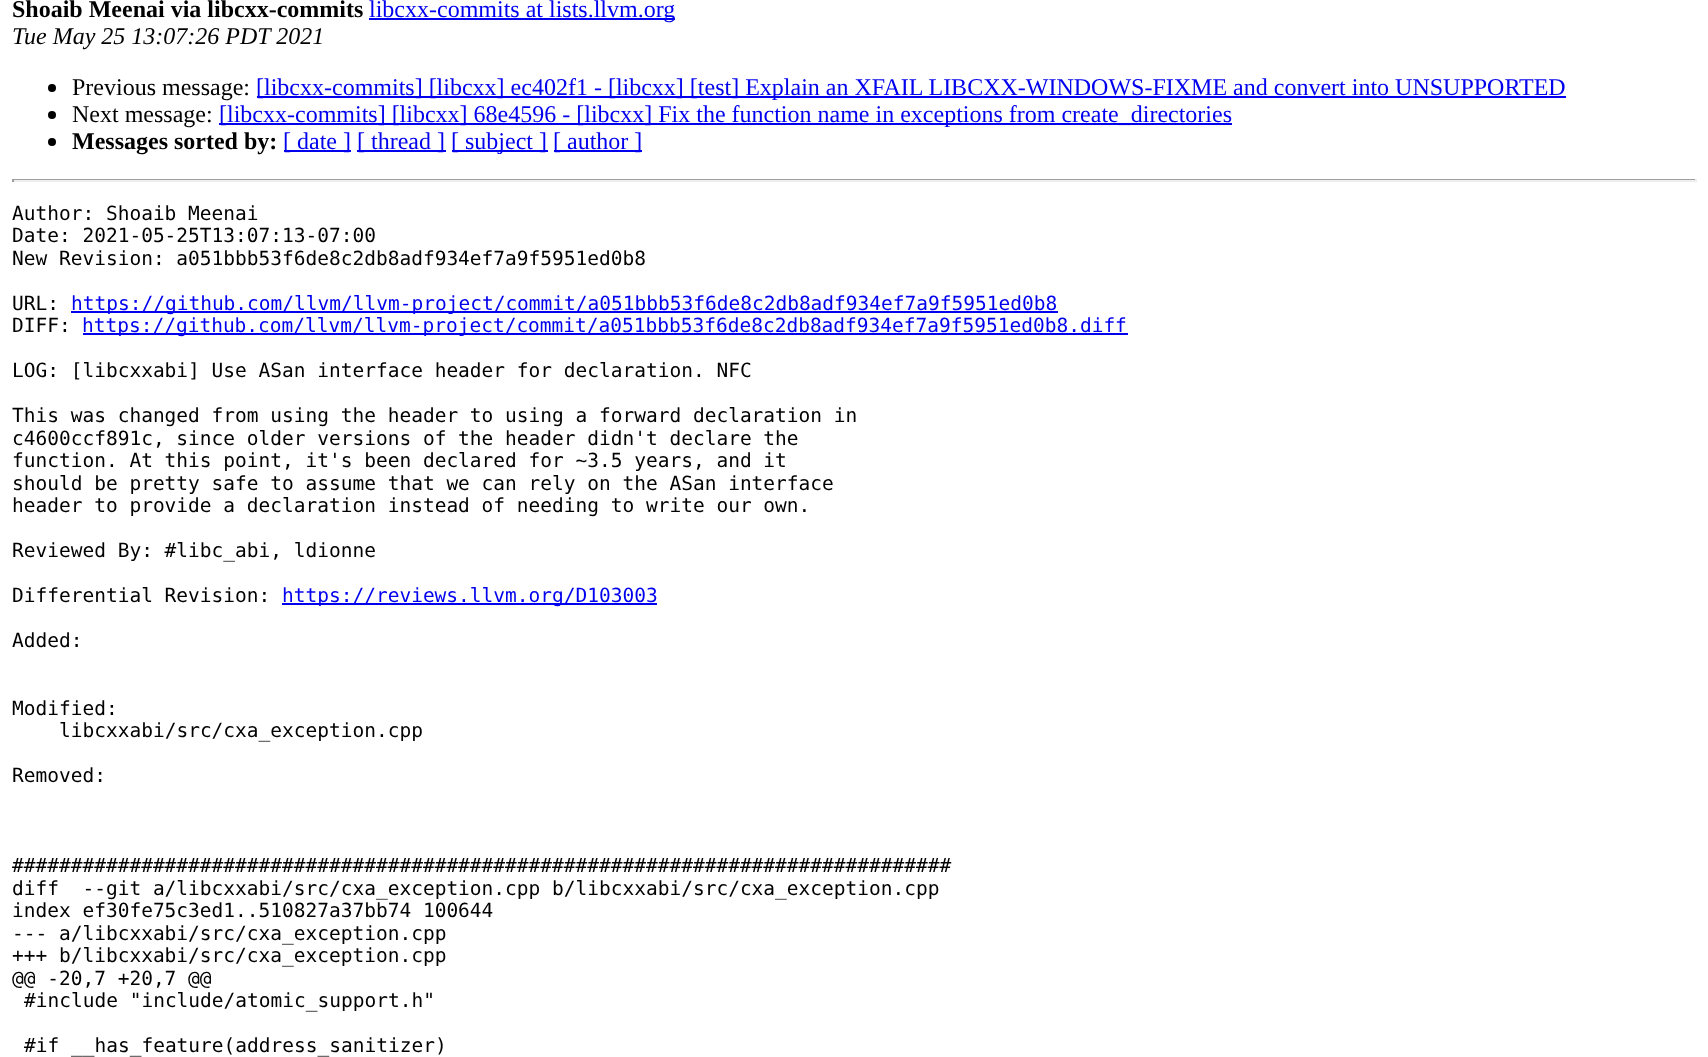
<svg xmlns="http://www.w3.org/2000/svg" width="1708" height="1057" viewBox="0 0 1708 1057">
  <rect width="100%" height="100%" fill="#fff"/>
  <path d="M369 18h306v2H369z" fill="#00e"/>
  <circle cx="52" cy="88" r="4" fill="#000"/>
  <path d="M257 96h1309v2H257z" fill="#00e"/>
  <circle cx="52" cy="115" r="4" fill="#000"/>
  <path d="M219 123h1013v2H219z" fill="#00e"/>
  <circle cx="52" cy="142" r="4" fill="#000"/>
  <path d="M284 150h67v2H284z" fill="#00e"/>
  <path d="M357 150h89v2H357z" fill="#00e"/>
  <path d="M452 150h96v2H452z" fill="#00e"/>
  <path d="M554 150h88v2H554z" fill="#00e"/>
  <path d="M12 179h1685v1H12z" fill="#9f9f9f"/>
  <path d="M1695 179h2v3H1695z" fill="#eee"/>
  <path d="M12 180h1685v2H12z" fill="#eee"/>
  <path d="M12 179h2v3H12z" fill="#9f9f9f"/>
  <path d="M71 311h987v2H71z" fill="#00e"/>
  <path d="M83 333h1045v2H83z" fill="#00e"/>
  <path d="M282 603h375v2H282z" fill="#00e"/>
  <text x="12" y="17" font-family="Liberation Serif" font-size="24" font-weight="bold" fill="#000">Shoaib Meenai via libcxx-commits</text>
  <text x="369" y="17" font-family="Liberation Serif" font-size="24" fill="#00e">libcxx-commits at lists.llvm.org</text>
  <text x="12" y="44" font-family="Liberation Serif" font-size="24" font-style="italic" fill="#000">Tue May 25 13:07:26 PDT 2021</text>
  <text x="72" y="95" font-family="Liberation Serif" font-size="24" fill="#000">Previous message:</text>
  <text x="256" y="95" font-family="Liberation Serif" font-size="24" fill="#00e">[libcxx-commits] [libcxx] ec402f1 - [libcxx] [test] Explain an XFAIL LIBCXX-WINDOWS-FIXME and convert into UNSUPPORTED</text>
  <text x="72" y="122" font-family="Liberation Serif" font-size="24" fill="#000">Next message:</text>
  <text x="219" y="122" font-family="Liberation Serif" font-size="24" fill="#00e">[libcxx-commits] [libcxx] 68e4596 - [libcxx] Fix the function name in exceptions from create_directories</text>
  <text x="72" y="149" font-family="Liberation Serif" font-size="24" font-weight="bold" fill="#000">Messages sorted by:</text>
  <g font-family="Liberation Serif" font-size="24" fill="#00e">
    <text x="283" y="149">[ date ]</text>
    <text x="357" y="149">[ thread ]</text>
    <text x="451" y="149">[ subject ]</text>
    <text x="553" y="149">[ author ]</text>
  </g>
  <g font-family="DejaVu Sans Mono" font-size="19.5" fill="#000">
    <text x="12" y="220">Author: Shoaib Meenai</text>
    <text x="12" y="242">Date: 2021-05-25T13:07:13-07:00</text>
    <text x="12" y="265">New Revision: a051bbb53f6de8c2db8adf934ef7a9f5951ed0b8</text>
    <text x="12" y="310">URL:</text>
  </g>
  <text x="71" y="310" font-family="DejaVu Sans Mono" font-size="19.5" fill="#00e">https://github.com/llvm/llvm-project/commit/a051bbb53f6de8c2db8adf934ef7a9f5951ed0b8</text>
  <text x="12" y="332" font-family="DejaVu Sans Mono" font-size="19.5" fill="#000">DIFF:</text>
  <text x="82" y="332" font-family="DejaVu Sans Mono" font-size="19.5" fill="#00e">https://github.com/llvm/llvm-project/commit/a051bbb53f6de8c2db8adf934ef7a9f5951ed0b8.diff</text>
  <g font-family="DejaVu Sans Mono" font-size="19.5" fill="#000">
    <text x="12" y="377">LOG: [libcxxabi] Use ASan interface header for declaration. NFC</text>
    <text x="12" y="422">This was changed from using the header to using a forward declaration in</text>
    <text x="12" y="445">c4600ccf891c, since older versions of the header didn't declare the</text>
    <text x="12" y="467">function. At this point, it's been declared for ~3.5 years, and it</text>
    <text x="12" y="490">should be pretty safe to assume that we can rely on the ASan interface</text>
    <text x="12" y="512">header to provide a declaration instead of needing to write our own.</text>
    <text x="12" y="557">Reviewed By: #libc_abi, ldionne</text>
    <text x="12" y="602">Differential Revision:</text>
  </g>
  <text x="282" y="602" font-family="DejaVu Sans Mono" font-size="19.5" fill="#00e">https://reviews.llvm.org/D103003</text>
  <g font-family="DejaVu Sans Mono" font-size="19.5" fill="#000">
    <text x="12" y="647">Added:</text>
    <text x="12" y="715">Modified:</text>
    <text x="59" y="737">libcxxabi/src/cxa_exception.cpp</text>
    <text x="12" y="782">Removed:</text>
    <text x="12" y="872">################################################################################</text>
    <text x="12" y="895" xml:space="preserve">diff  --git a/libcxxabi/src/cxa_exception.cpp b/libcxxabi/src/cxa_exception.cpp</text>
    <text x="12" y="917">index ef30fe75c3ed1..510827a37bb74 100644</text>
    <text x="12" y="940">--- a/libcxxabi/src/cxa_exception.cpp</text>
    <text x="12" y="962">+++ b/libcxxabi/src/cxa_exception.cpp</text>
    <text x="12" y="985">@@ -20,7 +20,7 @@</text>
    <text x="24" y="1007">#include "include/atomic_support.h"</text>
    <text x="24" y="1052">#if __has_feature(address_sanitizer)</text>
  </g>
</svg>
